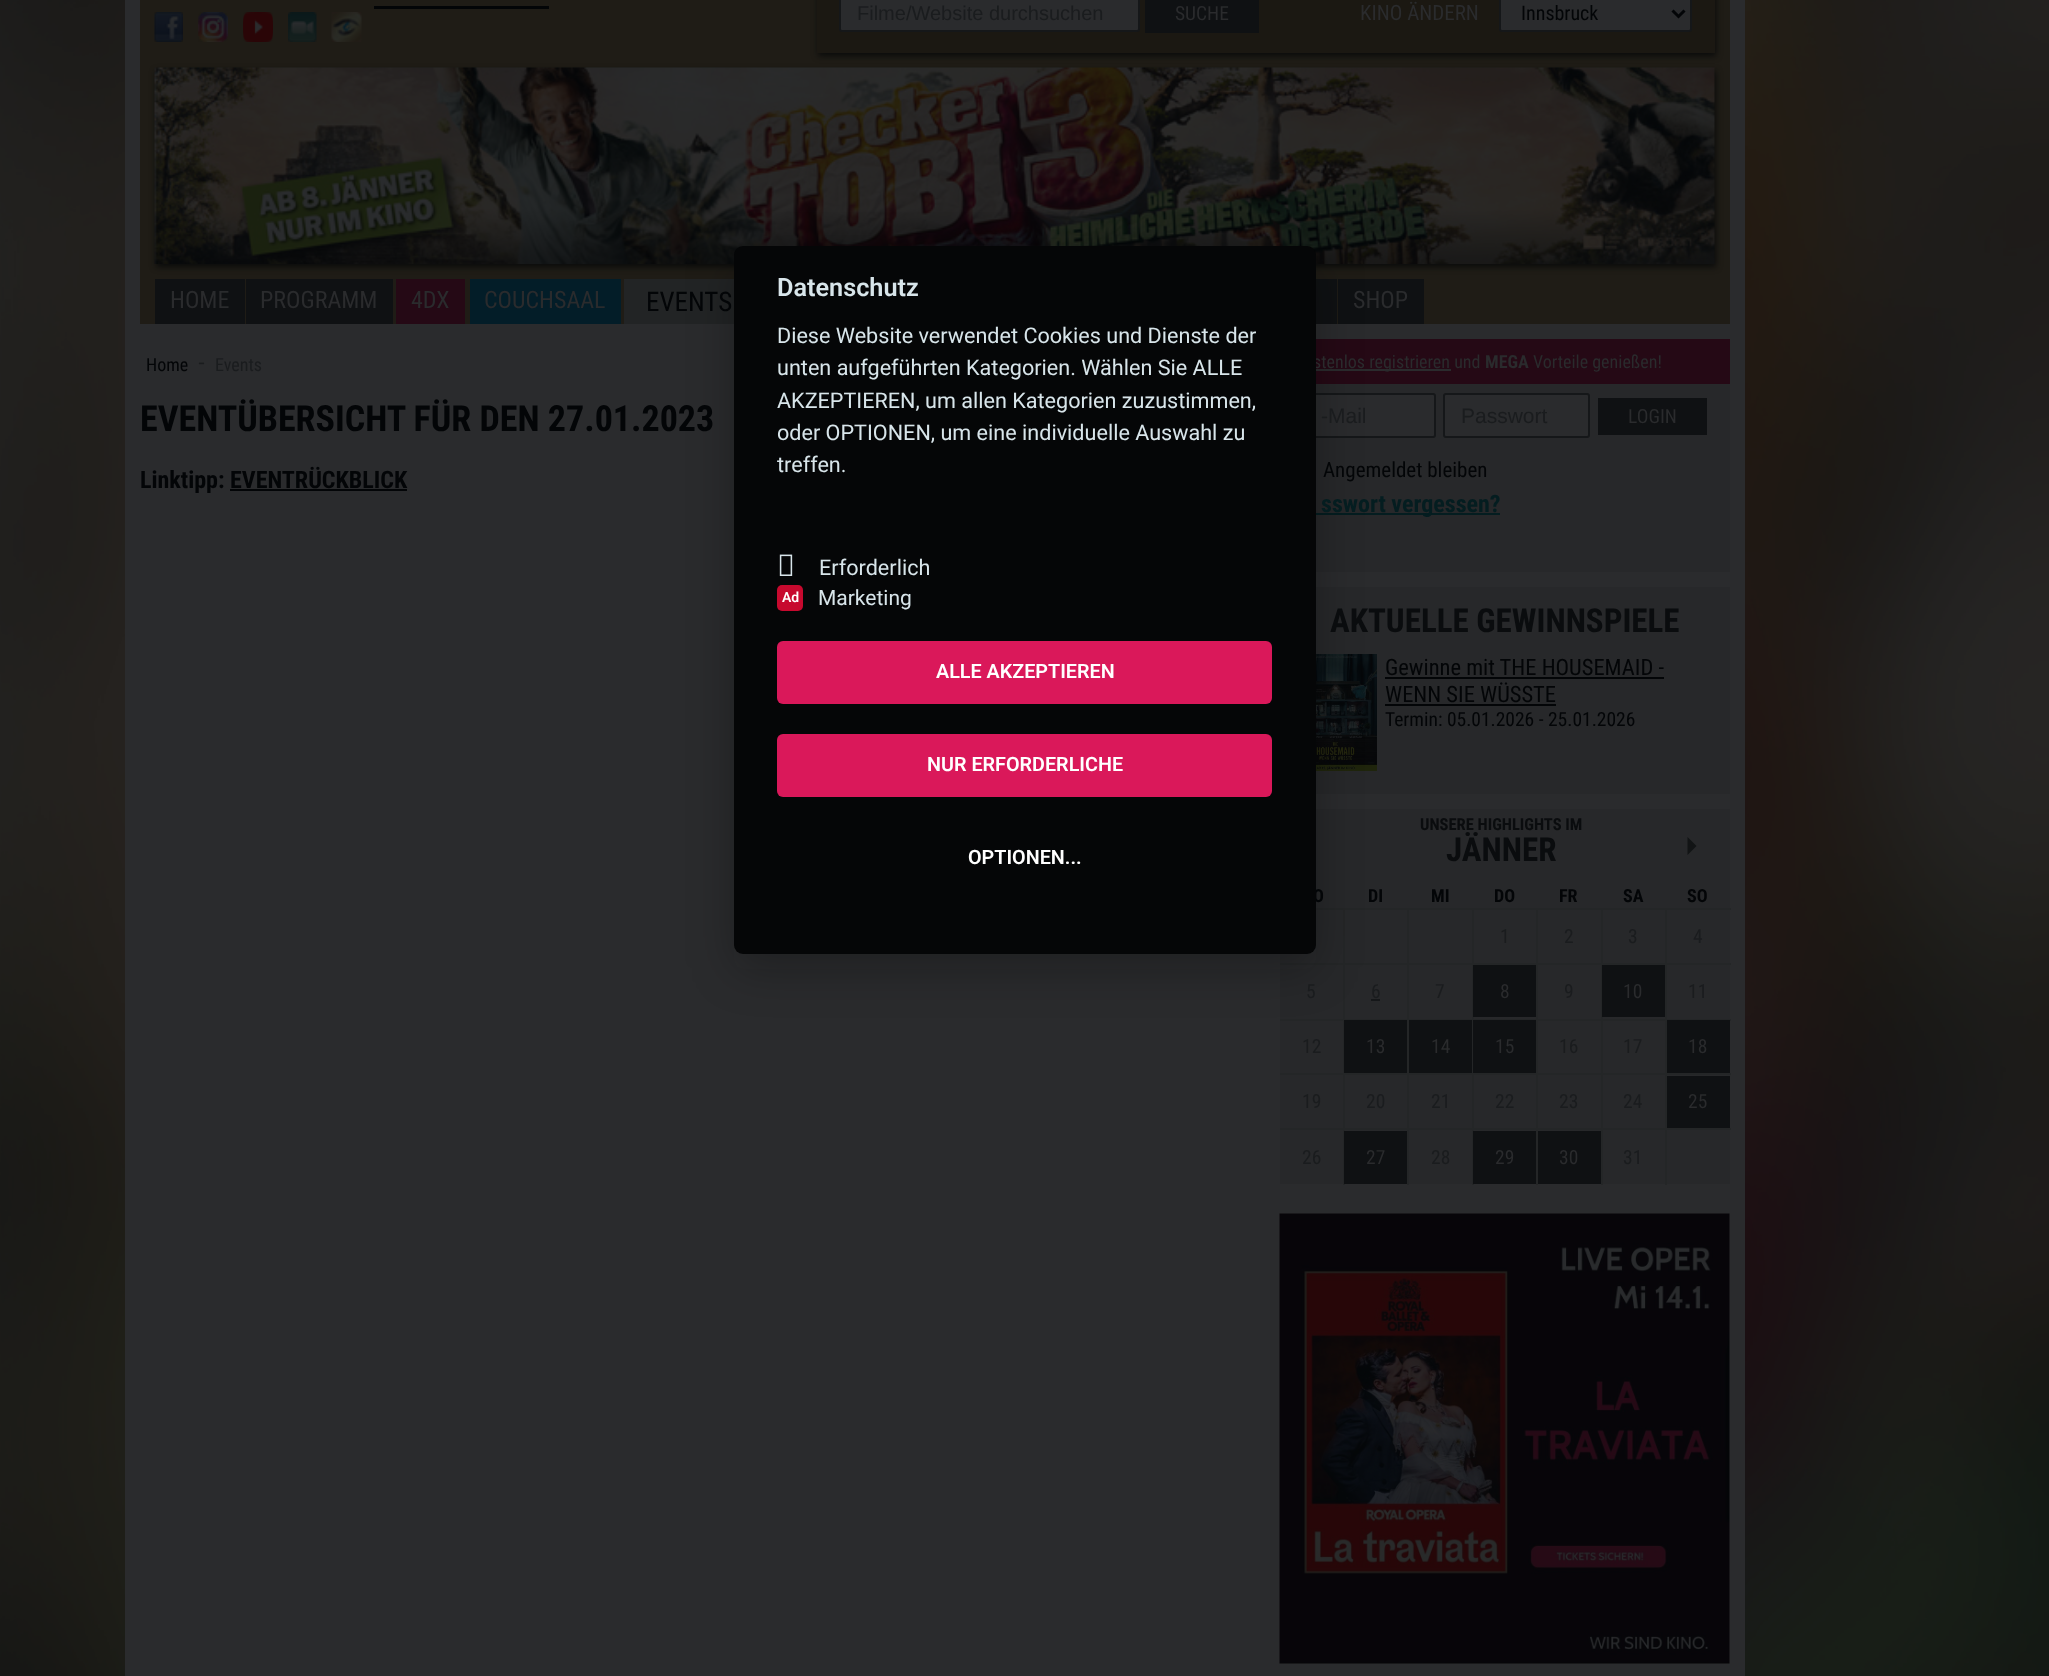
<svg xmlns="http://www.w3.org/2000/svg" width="2049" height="1676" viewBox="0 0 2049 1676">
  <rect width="100%" height="100%" fill="#fff"/>
  <image x="0" y="0" width="2049" height="1676" href="img/1.png"/>
  <path d="M125 0h1620v1676H125z" fill="#2a2b2d"/>
  <path d="M140 0h1590v324H140z" fill="#1f1c16"/>
  <path d="M374 6h175v3H374z" fill="#030507"/>
  <image x="154" y="12" width="29" height="30" href="img/2.png"/>
  <image x="198" y="12" width="30" height="30" href="img/3.png"/>
  <image x="243" y="12" width="30" height="30" href="img/4.png"/>
  <image x="288" y="12" width="29" height="30" href="img/5.png"/>
  <image x="331" y="12" width="31" height="30" href="img/6.png"/>
  <path d="M818 -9h898v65H818z" fill="#030507bf" filter="blur(3px)"/>
  <path d="M817 0h898v53H817z" fill="#1b1812"/>
  <rect x="840" y="-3" width="299" height="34" rx="2" fill="#2a2b2d" stroke="#151719" stroke-width="2"/>
  <path d="M1145 0h114v33H1145z" fill="#0f1113"/>
  <rect x="1500" y="-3" width="191" height="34" rx="2" fill="#2a2b2d" stroke="#151719" stroke-width="2"/>
  <path d="M1672.5 10.5L1678.5 16.5L1684.5 10.5" fill="none" stroke="#030507" stroke-width="3"/>
  <path d="M156 71h1560v196H156z" fill="#030507bf" filter="blur(3px)"/>
  <image x="154" y="67" width="1561" height="197" href="img/7.png"/>
  <path d="M155 279h90v45H155z" fill="#0f1113"/>
  <path d="M246 279h147v45H246z" fill="#0f1113"/>
  <path d="M396 279h69v45H396z" fill="#250915"/>
  <path d="M470 279h151v45H470z" fill="#031d28"/>
  <path d="M624 279h110v45H624z" fill="#222425"/>
  <path d="M1316 279h21v45H1316z" fill="#0f1113"/>
  <path d="M1338 279h86v45H1338z" fill="#0f1113"/>
  <path d="M230 489h177v2H230z" fill="#030507"/>
  <path d="M1316 339h414v45H1316z" fill="#250915"/>
  <path d="M1316 369h135v2H1316z" fill="#2a2b2d"/>
  <path d="M1316 384h414v188H1316z" fill="#27282a"/>
  <rect x="1290" y="394" width="145" height="43" rx="2" fill="#2a2b2d" stroke="#151719" stroke-width="2"/>
  <rect x="1444" y="394" width="145" height="43" rx="2" fill="#2a2b2d" stroke="#151719" stroke-width="2"/>
  <path d="M1598 398h109v37H1598z" fill="#0f1113"/>
  <path d="M1316 513h184v2H1316z" fill="#041d20"/>
  <path d="M1316 587h414v207H1316z" fill="#27282a"/>
  <image x="1316" y="654" width="61" height="117" href="img/8.png"/>
  <path d="M1385 677h279v2H1385z" fill="#030507"/>
  <path d="M1385 704h171v2H1385z" fill="#030507"/>
  <path d="M1280 809h450v375H1280z" fill="#27282a"/>
  <path d="M1687.5 855V837L1696.5 846Z" fill="#121415"/>
  <path d="M1665 1128h2v57H1665z" fill="#242627"/>
  <path d="M1665 1128h66v2H1665z" fill="#242627"/>
  <path d="M1665 1073h2v57H1665z" fill="#242627"/>
  <path d="M1665 1073h66v2H1665z" fill="#242627"/>
  <path d="M1665 1019h2v55H1665z" fill="#242627"/>
  <path d="M1665 1019h66v2H1665z" fill="#242627"/>
  <path d="M1665 963h2v57H1665z" fill="#242627"/>
  <path d="M1665 963h66v2H1665z" fill="#242627"/>
  <path d="M1665 908h2v57H1665z" fill="#242627"/>
  <path d="M1601 1128h2v57H1601z" fill="#242627"/>
  <path d="M1601 1128h66v2H1601z" fill="#242627"/>
  <path d="M1601 1073h2v57H1601z" fill="#242627"/>
  <path d="M1601 1073h66v2H1601z" fill="#242627"/>
  <path d="M1601 1019h2v55H1601z" fill="#242627"/>
  <path d="M1601 1019h66v2H1601z" fill="#242627"/>
  <path d="M1601 963h2v57H1601z" fill="#242627"/>
  <path d="M1601 963h66v2H1601z" fill="#242627"/>
  <path d="M1601 908h2v57H1601z" fill="#242627"/>
  <path d="M1536 1128h2v57H1536z" fill="#242627"/>
  <path d="M1536 1128h66v2H1536z" fill="#242627"/>
  <path d="M1536 1073h2v57H1536z" fill="#242627"/>
  <path d="M1536 1073h66v2H1536z" fill="#242627"/>
  <path d="M1536 1019h2v55H1536z" fill="#242627"/>
  <path d="M1536 1019h66v2H1536z" fill="#242627"/>
  <path d="M1536 963h2v57H1536z" fill="#242627"/>
  <path d="M1536 963h66v2H1536z" fill="#242627"/>
  <path d="M1536 908h2v57H1536z" fill="#242627"/>
  <path d="M1472 1128h2v57H1472z" fill="#242627"/>
  <path d="M1472 1128h66v2H1472z" fill="#242627"/>
  <path d="M1472 1073h2v57H1472z" fill="#242627"/>
  <path d="M1472 1073h66v2H1472z" fill="#242627"/>
  <path d="M1472 1019h2v55H1472z" fill="#242627"/>
  <path d="M1472 1019h66v2H1472z" fill="#242627"/>
  <path d="M1472 963h2v57H1472z" fill="#242627"/>
  <path d="M1472 963h66v2H1472z" fill="#242627"/>
  <path d="M1472 908h2v57H1472z" fill="#242627"/>
  <path d="M1407 1128h2v57H1407z" fill="#242627"/>
  <path d="M1407 1128h66v2H1407z" fill="#242627"/>
  <path d="M1407 1073h2v57H1407z" fill="#242627"/>
  <path d="M1407 1073h66v2H1407z" fill="#242627"/>
  <path d="M1407 1019h2v55H1407z" fill="#242627"/>
  <path d="M1407 1019h66v2H1407z" fill="#242627"/>
  <path d="M1407 963h2v57H1407z" fill="#242627"/>
  <path d="M1407 963h66v2H1407z" fill="#242627"/>
  <path d="M1407 908h2v57H1407z" fill="#242627"/>
  <path d="M1343 1128h2v57H1343z" fill="#242627"/>
  <path d="M1343 1128h66v2H1343z" fill="#242627"/>
  <path d="M1343 1073h2v57H1343z" fill="#242627"/>
  <path d="M1343 1073h66v2H1343z" fill="#242627"/>
  <path d="M1343 1019h2v55H1343z" fill="#242627"/>
  <path d="M1343 1019h66v2H1343z" fill="#242627"/>
  <path d="M1343 963h2v57H1343z" fill="#242627"/>
  <path d="M1343 963h66v2H1343z" fill="#242627"/>
  <path d="M1343 908h2v57H1343z" fill="#242627"/>
  <path d="M1316 908h415v2H1316z" fill="#242627"/>
  <path d="M1280 963h64v2H1280z" fill="#242627"/>
  <path d="M1280 1019h64v2H1280z" fill="#242627"/>
  <path d="M1371 999h9v2H1371z" fill="#151719"/>
  <path d="M1473 965h63v52H1473z" fill="#0f1113"/>
  <path d="M1602 965h63v52H1602z" fill="#0f1113"/>
  <path d="M1280 1073h64v2H1280z" fill="#242627"/>
  <path d="M1344 1020h63v53H1344z" fill="#0f1113"/>
  <path d="M1409 1020h63v53H1409z" fill="#0f1113"/>
  <path d="M1473 1020h63v53H1473z" fill="#0f1113"/>
  <path d="M1667 1020h63v53H1667z" fill="#0f1113"/>
  <path d="M1280 1128h64v2H1280z" fill="#242627"/>
  <path d="M1667 1076h63v52H1667z" fill="#0f1113"/>
  <path d="M1344 1131h63v53H1344z" fill="#0f1113"/>
  <path d="M1473 1131h63v53H1473z" fill="#0f1113"/>
  <path d="M1538 1131h63v53H1538z" fill="#0f1113"/>
  <image x="1279" y="1213" width="451" height="451" href="img/9.png"/>
  <rect x="734" y="261" width="582" height="708" rx="9" fill="#02020347" filter="blur(22.5px)"/>
  <text x="857" y="20" font-family="Liberation Sans" font-size="20" fill="#1a1c1e">Filme/Website durchsuchen</text>
  <text x="1175" y="20" font-family="Roboto Condensed" font-size="19.5" fill="#2a2b2d">SUCHE</text>
  <text x="1360" y="20" font-family="Roboto Condensed" font-size="21" fill="#2a2b2d">KINO ÄNDERN</text>
  <text x="1521" y="20" font-family="Roboto Condensed" font-size="20" fill="#030507">Innsbruck</text>
  <g font-family="Roboto Condensed" font-size="24" fill="#2a2b2d">
    <text x="170" y="308">HOME</text>
    <text x="260" y="308">PROGRAMM</text>
    <text x="411" y="308">4DX</text>
    <text x="484" y="308">COUCHSAAL</text>
  </g>
  <text x="646" y="311" font-family="Roboto Condensed" font-size="27" fill="#030507">EVENTS</text>
  <text x="1353" y="308" font-family="Roboto Condensed" font-size="24" fill="#2a2b2d">SHOP</text>
  <text x="146" y="371" font-family="Roboto Condensed" font-size="18" fill="#030507">Home</text>
  <text x="198" y="369" font-family="Liberation Sans" font-size="21" fill="#1a1c1e">-</text>
  <text x="215" y="371" font-family="Roboto Condensed" font-size="18" fill="#1a1c1e">Events</text>
  <text x="140" y="431" font-family="Roboto Condensed" font-size="36" font-weight="bold" fill="#030507">EVENTÜBERSICHT FÜR DEN 27.01.2023</text>
  <text x="140" y="488" font-family="Roboto Condensed" font-size="24" font-weight="bold" fill="#030507">Linktipp: EVENTRÜCKBLICK</text>
  <text x="1313" y="368" font-family="Roboto Condensed" font-size="18" fill="#2a2b2d">stenlos registrieren und</text>
  <text x="1485" y="368" font-family="Roboto Condensed" font-size="18" font-weight="bold" fill="#2a2b2d">MEGA</text>
  <text x="1533" y="368" font-family="Roboto Condensed" font-size="18" fill="#2a2b2d">Vorteile genießen!</text>
  <g font-family="Liberation Sans" font-size="21" fill="#1a1c1e">
    <text x="1321" y="423">-Mail</text>
    <text x="1461" y="423">Passwort</text>
  </g>
  <text x="1628" y="423" font-family="Roboto Condensed" font-size="19.5" fill="#2a2b2d">LOGIN</text>
  <text x="1323" y="477" font-family="Roboto Condensed" font-size="21" fill="#030507">Angemeldet bleiben</text>
  <text x="1321" y="512" font-family="Roboto Condensed" font-size="24" font-weight="bold" fill="#041d20">sswort vergessen?</text>
  <text x="1330" y="632" font-family="Roboto Condensed" font-size="33" font-weight="bold" fill="#0a0c0e">AKTUELLE GEWINNSPIELE</text>
  <g font-family="Roboto Condensed" font-size="22.5" fill="#030507">
    <text x="1385" y="675">Gewinne mit THE HOUSEMAID -</text>
    <text x="1385" y="702">WENN SIE WÜSSTE</text>
  </g>
  <text x="1385" y="726" font-family="Roboto Condensed" font-size="19.5" fill="#030507">Termin: 05.01.2026 - 25.01.2026</text>
  <text x="1420" y="830" font-family="Roboto Condensed" font-size="16.5" font-weight="bold" fill="#0a0c0e">UNSERE HIGHLIGHTS IM</text>
  <text x="1446" y="861" font-family="Roboto Condensed" font-size="33" font-weight="bold" fill="#0a0c0e">JÄNNER</text>
  <g font-family="Roboto Condensed" font-size="18" font-weight="bold" fill="#030507">
    <text x="1313" y="902">O</text>
    <text x="1368" y="902">DI</text>
    <text x="1431" y="902">MI</text>
    <text x="1494" y="902">DO</text>
    <text x="1559" y="902">FR</text>
    <text x="1623" y="902">SA</text>
    <text x="1687" y="902">SO</text>
  </g>
  <g font-family="Roboto Condensed" font-size="19.5" fill="#1a1c1e">
    <text x="1500" y="943">1</text>
    <text x="1564" y="943">2</text>
    <text x="1628" y="943">3</text>
    <text x="1693" y="943">4</text>
    <text x="1306" y="998">5</text>
    <text x="1371" y="998">6</text>
    <text x="1435" y="998">7</text>
  </g>
  <text x="1500" y="998" font-family="Roboto Condensed" font-size="19.5" fill="#2a2b2d">8</text>
  <text x="1564" y="998" font-family="Roboto Condensed" font-size="19.5" fill="#1a1c1e">9</text>
  <text x="1623" y="998" font-family="Roboto Condensed" font-size="19.5" fill="#2a2b2d">10</text>
  <g font-family="Roboto Condensed" font-size="19.5" fill="#1a1c1e">
    <text x="1688" y="998">11</text>
    <text x="1302" y="1053">12</text>
  </g>
  <g font-family="Roboto Condensed" font-size="19.5" fill="#2a2b2d">
    <text x="1366" y="1053">13</text>
    <text x="1431" y="1053">14</text>
    <text x="1495" y="1053">15</text>
  </g>
  <g font-family="Roboto Condensed" font-size="19.5" fill="#1a1c1e">
    <text x="1559" y="1053">16</text>
    <text x="1623" y="1053">17</text>
  </g>
  <text x="1688" y="1053" font-family="Roboto Condensed" font-size="19.5" fill="#2a2b2d">18</text>
  <g font-family="Roboto Condensed" font-size="19.5" fill="#1a1c1e">
    <text x="1302" y="1108">19</text>
    <text x="1366" y="1108">20</text>
    <text x="1431" y="1108">21</text>
    <text x="1495" y="1108">22</text>
    <text x="1559" y="1108">23</text>
    <text x="1623" y="1108">24</text>
  </g>
  <text x="1688" y="1108" font-family="Roboto Condensed" font-size="19.5" fill="#2a2b2d">25</text>
  <text x="1302" y="1164" font-family="Roboto Condensed" font-size="19.5" fill="#1a1c1e">26</text>
  <text x="1366" y="1164" font-family="Roboto Condensed" font-size="19.5" fill="#2a2b2d">27</text>
  <text x="1431" y="1164" font-family="Roboto Condensed" font-size="19.5" fill="#1a1c1e">28</text>
  <g font-family="Roboto Condensed" font-size="19.5" fill="#2a2b2d">
    <text x="1495" y="1164">29</text>
    <text x="1559" y="1164">30</text>
  </g>
  <text x="1623" y="1164" font-family="Roboto Condensed" font-size="19.5" fill="#1a1c1e">31</text>
  <rect x="734" y="246" width="582" height="708" rx="9" fill="#050607"/>
  <text x="777" y="296" font-family="Roboto" font-size="25.25" font-weight="600" fill="#d8e5ea">Datenschutz</text>
  <g font-family="Roboto" font-size="21.6" fill="#d8e5ea">
    <text x="777" y="343">Diese Website verwendet Cookies und Dienste der</text>
    <text x="777" y="375">unten aufgeführten Kategorien. Wählen Sie ALLE</text>
    <text x="777" y="408">AKZEPTIEREN, um allen Kategorien zuzustimmen,</text>
    <text x="777" y="440">oder OPTIONEN, um eine individuelle Auswahl zu</text>
    <text x="777" y="472">treffen.</text>
  </g>
  <image x="779" y="554" width="14" height="22" href="img/10.png"/>
  <text x="819" y="575" font-family="Roboto" font-size="21.6" fill="#d8e5ea">Erforderlich</text>
  <rect x="777" y="585" width="26" height="26" rx="5" fill="#c7092e"/>
  <text x="782" y="602" font-family="Roboto" font-size="14" font-weight="600" fill="#fff">Ad</text>
  <text x="818" y="605" font-family="Roboto" font-size="21" fill="#d8e5ea">Marketing</text>
  <rect x="777" y="641" width="495" height="63" rx="6" fill="#da185a"/>
  <text x="936" y="678" font-family="Roboto" font-size="19.75" font-weight="600" fill="#fff">ALLE AKZEPTIEREN</text>
  <rect x="777" y="734" width="495" height="63" rx="6" fill="#da185a"/>
  <g font-family="Roboto" font-size="19.75" font-weight="600" fill="#fff">
    <text x="927" y="771">NUR ERFORDERLICHE</text>
    <text x="968" y="864">OPTIONEN...</text>
  </g>
</svg>
